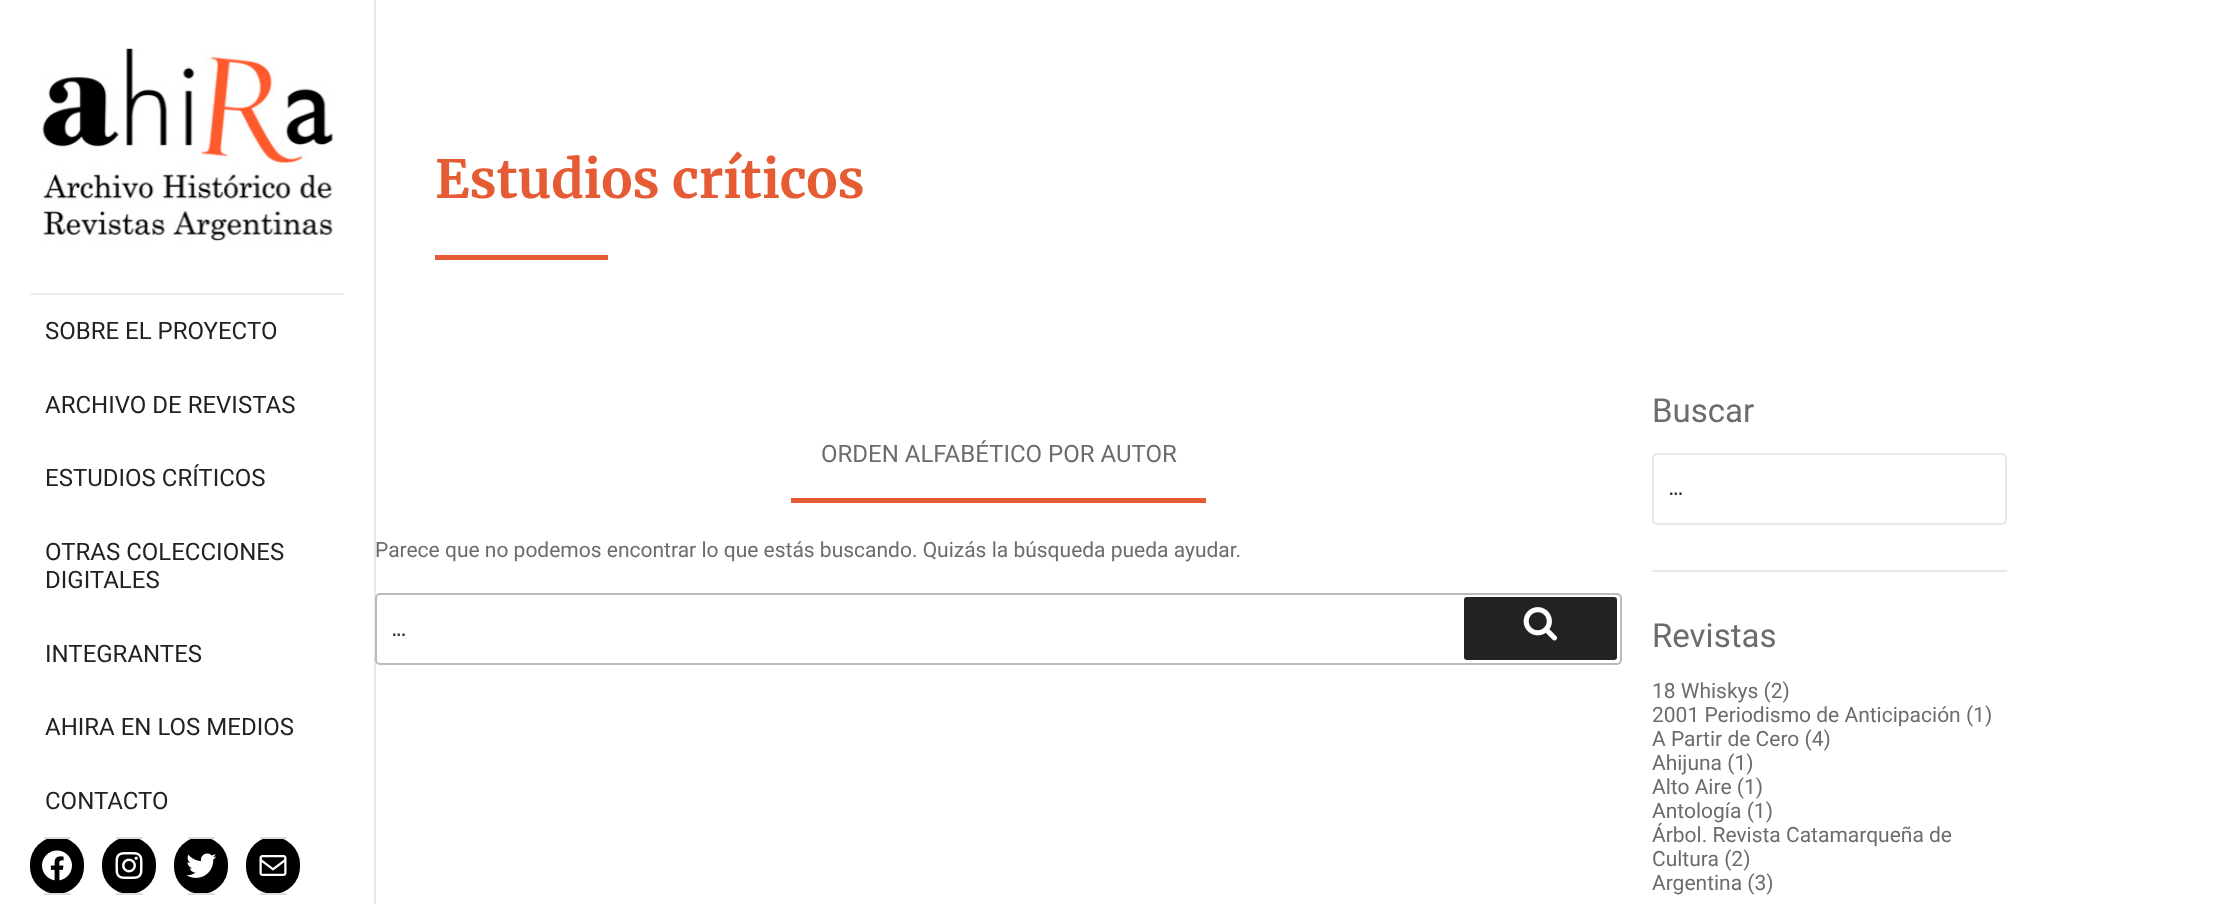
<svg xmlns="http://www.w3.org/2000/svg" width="2218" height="904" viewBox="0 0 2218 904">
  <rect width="100%" height="100%" fill="#fff"/>
  <path d="M374 0h2v904H374z" fill="#e9e9e9"/>
  <image x="42" y="48" width="292" height="193" href="img/1.png"/>
  <path d="M30 293h314v2H30z" fill="#eee"/>
  <rect x="30" y="837" width="54" height="57" rx="27" fill="#000"/>
  <path d="M44 837h27v2H44z" fill="#ddd"/>
  <path d="M44 893h27v2H44z" fill="#ddd"/>
  <image x="42" y="850" width="30" height="31" href="img/2.png"/>
  <rect x="102" y="837" width="54" height="57" rx="27" fill="#000"/>
  <path d="M116 837h27v2H116z" fill="#ddd"/>
  <path d="M116 893h27v2H116z" fill="#ddd"/>
  <image x="115" y="852" width="28" height="27" href="img/3.png"/>
  <rect x="174" y="837" width="54" height="57" rx="27" fill="#000"/>
  <path d="M188 837h27v2H188z" fill="#ddd"/>
  <path d="M188 893h27v2H188z" fill="#ddd"/>
  <image x="186" y="853" width="31" height="25" href="img/4.png"/>
  <rect x="246" y="837" width="54" height="57" rx="27" fill="#000"/>
  <path d="M260 837h27v2H260z" fill="#ddd"/>
  <path d="M260 893h27v2H260z" fill="#ddd"/>
  <image x="259" y="855" width="28" height="21" href="img/5.png"/>
  <path d="M435 255h173v5H435z" fill="#e55b34"/>
  <path d="M791 498h415v5H791z" fill="#e55b34"/>
  <rect x="376" y="594" width="1245" height="70" rx="4" fill="#fff" stroke="#bbb" stroke-width="2"/>
  <rect x="1464" y="597" width="153" height="63" rx="3" fill="#222"/>
  <image x="1523" y="607" width="34" height="34" href="img/6.png"/>
  <path d="M1652 570h355v2H1652z" fill="#e9e9e9"/>
  <rect x="1653" y="454" width="353" height="70" rx="4" fill="none" stroke="#e9e9e9" stroke-width="2"/>
  <g font-family="Roboto" font-size="24" fill="#222">
    <text x="45" y="339">SOBRE EL PROYECTO</text>
    <text x="45" y="413">ARCHIVO DE REVISTAS</text>
    <text x="45" y="486">ESTUDIOS CRÍTICOS</text>
    <text x="45" y="560">OTRAS COLECCIONES</text>
    <text x="45" y="588">DIGITALES</text>
    <text x="45" y="662">INTEGRANTES</text>
    <text x="45" y="735">AHIRA EN LOS MEDIOS</text>
    <text x="45" y="809">CONTACTO</text>
  </g>
  <text x="435" y="198" font-family="Merriweather" font-size="52.5" font-weight="bold" fill="#e55b34">Estudios críticos</text>
  <text x="821" y="462" font-family="Roboto" font-size="24" fill="#6c6c6c">ORDEN ALFABÉTICO POR AUTOR</text>
  <text x="375" y="557" font-family="Roboto" font-size="21" fill="#6c6c6c">Parece que no podemos encontrar lo que estás buscando. Quizás la búsqueda pueda ayudar.</text>
  <text x="392" y="636" font-family="Libre Franklin" font-size="22" fill="#333">...</text>
  <text x="1652" y="422" font-family="Roboto" font-size="33" fill="#6c6c6c">Buscar</text>
  <text x="1669" y="495" font-family="Libre Franklin" font-size="22" fill="#333">...</text>
  <text x="1652" y="647" font-family="Roboto" font-size="33" fill="#6c6c6c">Revistas</text>
  <g font-family="Roboto" font-size="21" fill="#6c6c6c">
    <text x="1652" y="698">18 Whiskys (2)</text>
    <text x="1652" y="722">2001 Periodismo de Anticipación (1)</text>
    <text x="1652" y="746">A Partir de Cero (4)</text>
    <text x="1652" y="770">Ahijuna (1)</text>
    <text x="1652" y="794">Alto Aire (1)</text>
    <text x="1652" y="818">Antología (1)</text>
    <text x="1652" y="842">Árbol. Revista Catamarqueña de</text>
    <text x="1652" y="866">Cultura (2)</text>
    <text x="1652" y="890">Argentina (3)</text>
  </g>
</svg>
